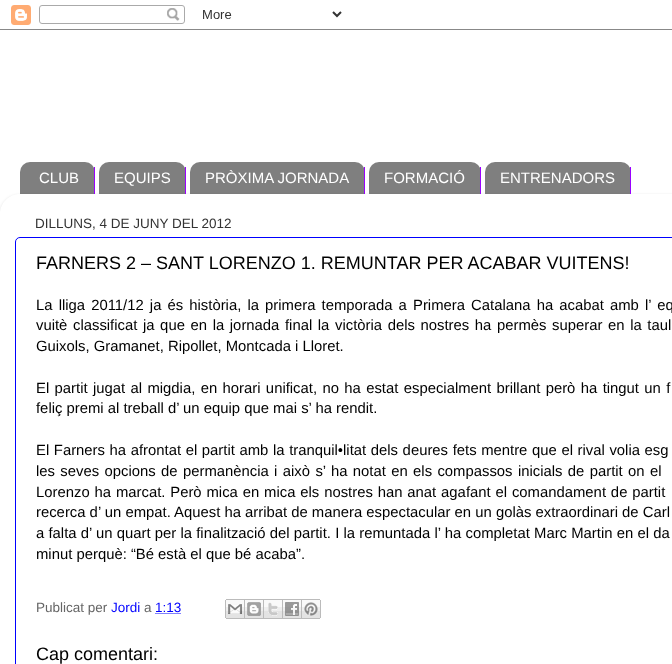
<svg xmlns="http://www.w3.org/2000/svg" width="672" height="664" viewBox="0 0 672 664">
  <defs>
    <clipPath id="clip1"><path d="M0 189H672V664H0ZM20 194H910C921 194 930 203 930 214V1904H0V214C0 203 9 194 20 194Z" clip-rule="evenodd"/></clipPath>
  </defs>
  <rect width="100%" height="100%" fill="#fff"/>
  <image x="0" y="5" width="672" height="25" href="img/1.png"/>
  <image x="20" y="162" width="74" height="32" href="img/2.png"/>
  <path d="M94 167h1v27H94z" fill="#90f"/>
  <image x="99" y="162" width="86" height="32" href="img/3.png"/>
  <path d="M185 167h1v27H185z" fill="#90f"/>
  <image x="190" y="162" width="174" height="32" href="img/4.png"/>
  <path d="M364 167h1v27H364z" fill="#90f"/>
  <image x="369" y="162" width="111" height="32" href="img/5.png"/>
  <path d="M480 167h1v27H480z" fill="#90f"/>
  <image x="485" y="162" width="145" height="32" href="img/6.png"/>
  <path d="M630 167h1v27H630z" fill="#90f"/>
  <g clip-path="url(#clip1)">
    <rect y="195" width="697" height="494" rx="20" fill="#00000026" filter="blur(1.5px)"/>
  </g>
  <rect x="15.5" y="237.5" width="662" height="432" rx="4.5" fill="none" stroke="#00f"/>
  <path d="M155.5 613.5H181.5" fill="none" stroke="#00f" stroke-dasharray="1 1"/>
  <image x="225" y="599" width="20" height="20" href="img/7.png"/>
  <image x="245" y="599" width="19" height="20" href="img/8.png"/>
  <image x="264" y="599" width="19" height="20" href="img/9.png"/>
  <image x="283" y="599" width="19" height="20" href="img/10.png"/>
  <image x="302" y="599" width="19" height="20" href="img/11.png"/>
  <g font-family="Liberation Sans" font-size="15" fill="#fff">
    <text x="39" y="183">CLUB</text>
    <text x="114" y="183">EQUIPS</text>
    <text x="205" y="183">PRÒXIMA JORNADA</text>
    <text x="384" y="183">FORMACIÓ</text>
    <text x="500" y="183">ENTRENADORS</text>
  </g>
  <text x="35" y="228" font-family="Liberation Sans" font-size="13.5" fill="#333">DILLUNS, 4 DE JUNY DEL 2012</text>
  <text x="36" y="269" font-family="Liberation Sans" font-size="18" fill="#000">FARNERS 2 – SANT LORENZO 1. REMUNTAR PER ACABAR VUITENS!</text>
  <g font-family="Liberation Sans" font-size="14.85" fill="#000">
    <text x="36" y="310" word-spacing="2">La lliga 2011/12 ja és història, la primera temporada a Primera Catalana ha acabat amb l’ eq</text>
    <text x="36" y="330" word-spacing="1.5">vuitè classificat ja que en la jornada final la victòria dels nostres ha permès superar en la taul</text>
    <text x="36" y="351">Guixols, Gramanet, Ripollet, Montcada i Lloret.</text>
    <text x="36" y="393" word-spacing="1.25">El partit jugat al migdia, en horari unificat, no ha estat especialment brillant però ha tingut un f</text>
    <text x="36" y="413">feliç premi al treball d’ un equip que mai s’ ha rendit.</text>
    <text x="36" y="455" word-spacing="0.5">El Farners ha afrontat el partit amb la tranquil•litat dels deures fets mentre que el rival volia esg</text>
    <text x="36" y="476" word-spacing="1.25">les seves opcions de permanència i això s’ ha notat en els compassos inicials de partit on el</text>
    <text x="36" y="497" word-spacing="0.75">Lorenzo ha marcat. Però mica en mica els nostres han anat agafant el comandament de partit</text>
    <text x="36" y="517">recerca d’ un empat. Aquest ha arribat de manera espectacular en un golàs extraordinari de Carl</text>
    <text x="36" y="538" word-spacing="0.1">a falta d’ un quart per la finalització del partit. I la remuntada l’ ha completat Marc Martin en el da</text>
    <text x="36" y="559">minut perquè: “Bé està el que bé acaba”.</text>
  </g>
  <text x="36" y="612" font-family="Liberation Sans" font-size="13.5" fill="#666">Publicat per</text>
  <text x="111" y="612" font-family="Liberation Sans" font-size="13.5" fill="#00f">Jordi</text>
  <text x="144" y="612" font-family="Liberation Sans" font-size="13.5" fill="#666">a</text>
  <text x="155" y="612" font-family="Liberation Sans" font-size="13.5" fill="#00f">1:13</text>
  <text x="36" y="660" font-family="Liberation Sans" font-size="18" fill="#000">Cap comentari:</text>
</svg>
